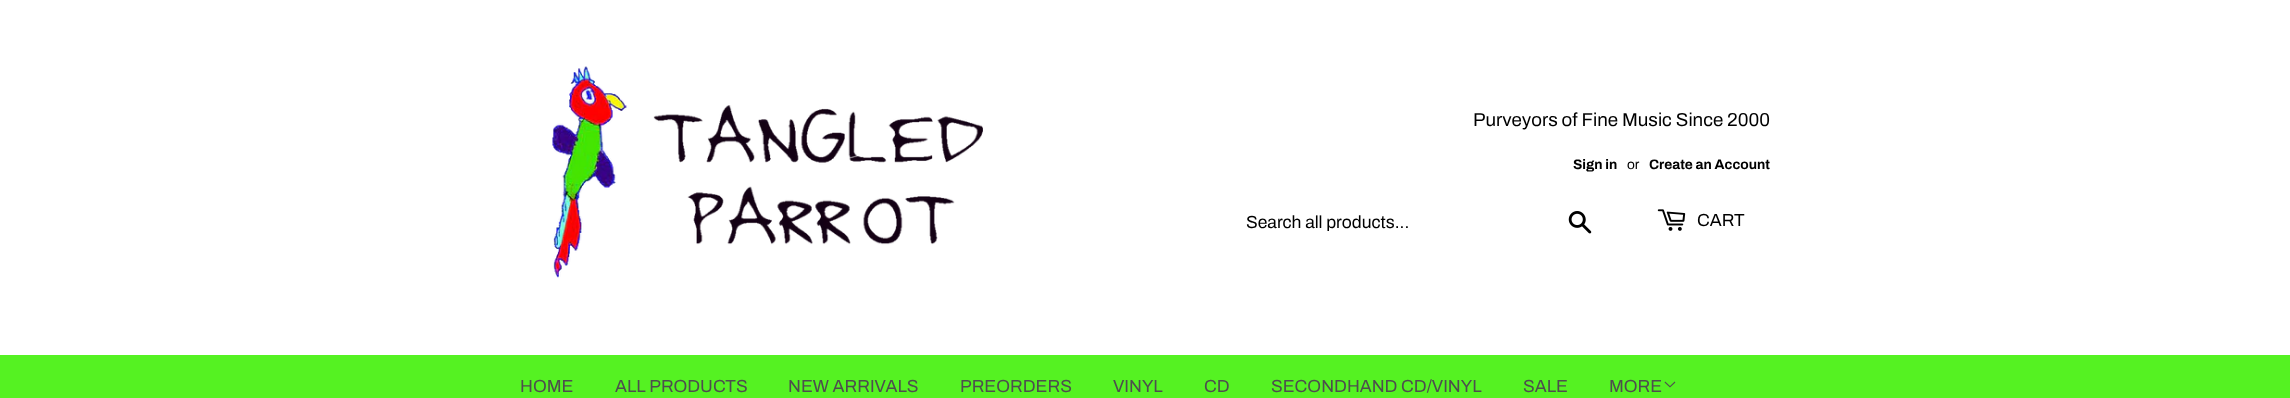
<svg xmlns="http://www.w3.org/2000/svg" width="2290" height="398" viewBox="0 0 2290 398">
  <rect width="100%" height="100%" fill="#fff"/>
  <image x="552" y="66" width="431" height="212" href="img/1.png"/>
  <image x="1568" y="211" width="24" height="23" href="img/2.png"/>
  <image x="1657" y="209" width="29" height="22" href="img/3.png"/>
  <path d="M0 355h2290v43H0z" fill="#55f222"/>
  <image x="1664" y="381" width="12" height="7" href="img/4.png"/>
  <text x="1473" y="126" font-family="Archivo" font-size="18.75" fill="#000">Purveyors of Fine Music Since 2000</text>
  <text x="1573" y="169" font-family="Archivo" font-size="13.75" font-weight="bold" fill="#000">Sign in</text>
  <text x="1627" y="169" font-family="Archivo" font-size="13.75" fill="#000">or</text>
  <text x="1649" y="169" font-family="Archivo" font-size="13.75" font-weight="bold" fill="#000">Create an Account</text>
  <g font-family="Archivo" font-size="17.5" fill="#000">
    <text x="1246" y="228">Search all products...</text>
    <text x="1697" y="226">CART</text>
  </g>
  <g font-family="Archivo" font-size="17.5" fill="#4e4e4e">
    <text x="520" y="392">HOME</text>
    <text x="615" y="392">ALL PRODUCTS</text>
    <text x="788" y="392">NEW ARRIVALS</text>
    <text x="960" y="392">PREORDERS</text>
    <text x="1113" y="392">VINYL</text>
    <text x="1204" y="392">CD</text>
    <text x="1271" y="392">SECONDHAND CD/VINYL</text>
    <text x="1523" y="392">SALE</text>
    <text x="1609" y="392">MORE</text>
  </g>
</svg>
